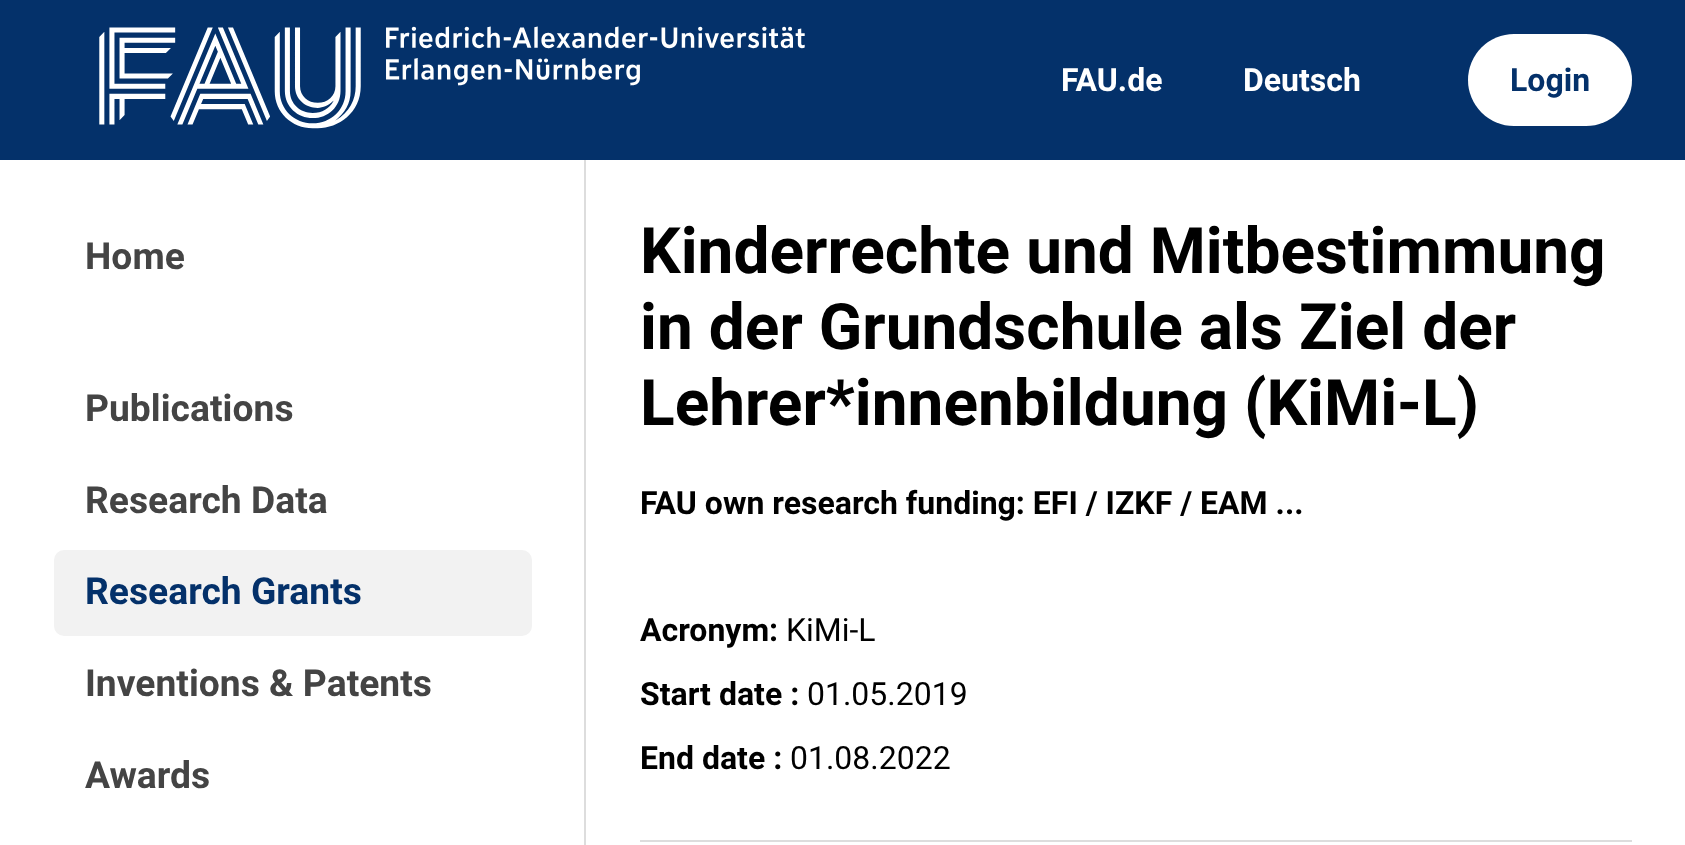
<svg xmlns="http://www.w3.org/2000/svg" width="1685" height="845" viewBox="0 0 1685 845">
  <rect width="100%" height="100%" fill="#fff"/>
  <path d="M0 0h1685v160H0z" fill="#04316a"/>
  <image x="99" y="26" width="706" height="103" href="img/1.png"/>
  <rect x="1468" y="34" width="164" height="92" rx="46" fill="#fff"/>
  <path d="M584 160h2v685H584z" fill="#ddd"/>
  <rect x="54" y="550" width="478" height="86" rx="10" fill="#f2f2f2"/>
  <path d="M640 840h992v2H640z" fill="#ddd"/>
  <g font-family="Roboto" font-size="32" font-weight="bold" fill="#fff">
    <text x="1061" y="91">FAU.de</text>
    <text x="1243" y="91">Deutsch</text>
  </g>
  <text x="1510" y="91" font-family="Roboto" font-size="32" font-weight="bold" fill="#04316a">Login</text>
  <g font-family="Roboto" font-size="37.25" font-weight="bold" fill="#444">
    <text x="85" y="269">Home</text>
    <text x="85" y="421">Publications</text>
    <text x="85" y="513">Research Data</text>
  </g>
  <text x="85" y="604" font-family="Roboto" font-size="37.25" font-weight="bold" fill="#04316a">Research Grants</text>
  <g font-family="Roboto" font-size="37.25" font-weight="bold" fill="#444">
    <text x="85" y="696">Inventions &amp; Patents</text>
    <text x="85" y="788">Awards</text>
  </g>
  <g font-family="Roboto" font-size="64" font-weight="bold" fill="#000">
    <text x="640" y="273">Kinderrechte und Mitbestimmung</text>
    <text x="640" y="349">in der Grundschule als Ziel der</text>
    <text x="640" y="425">Lehrer*innenbildung (KiMi-L)</text>
  </g>
  <g font-family="Roboto" font-size="32" font-weight="bold" fill="#000">
    <text x="640" y="514">FAU own research funding: EFI / IZKF / EAM ...</text>
    <text x="640" y="641">Acronym:</text>
  </g>
  <text x="786" y="641" font-family="Roboto" font-size="32" fill="#000">KiMi-L</text>
  <text x="640" y="705" font-family="Roboto" font-size="32" font-weight="bold" fill="#000">Start date :</text>
  <text x="807" y="705" font-family="Roboto" font-size="32" fill="#000">01.05.2019</text>
  <text x="640" y="769" font-family="Roboto" font-size="32" font-weight="bold" fill="#000">End date :</text>
  <text x="790" y="769" font-family="Roboto" font-size="32" fill="#000">01.08.2022</text>
</svg>
